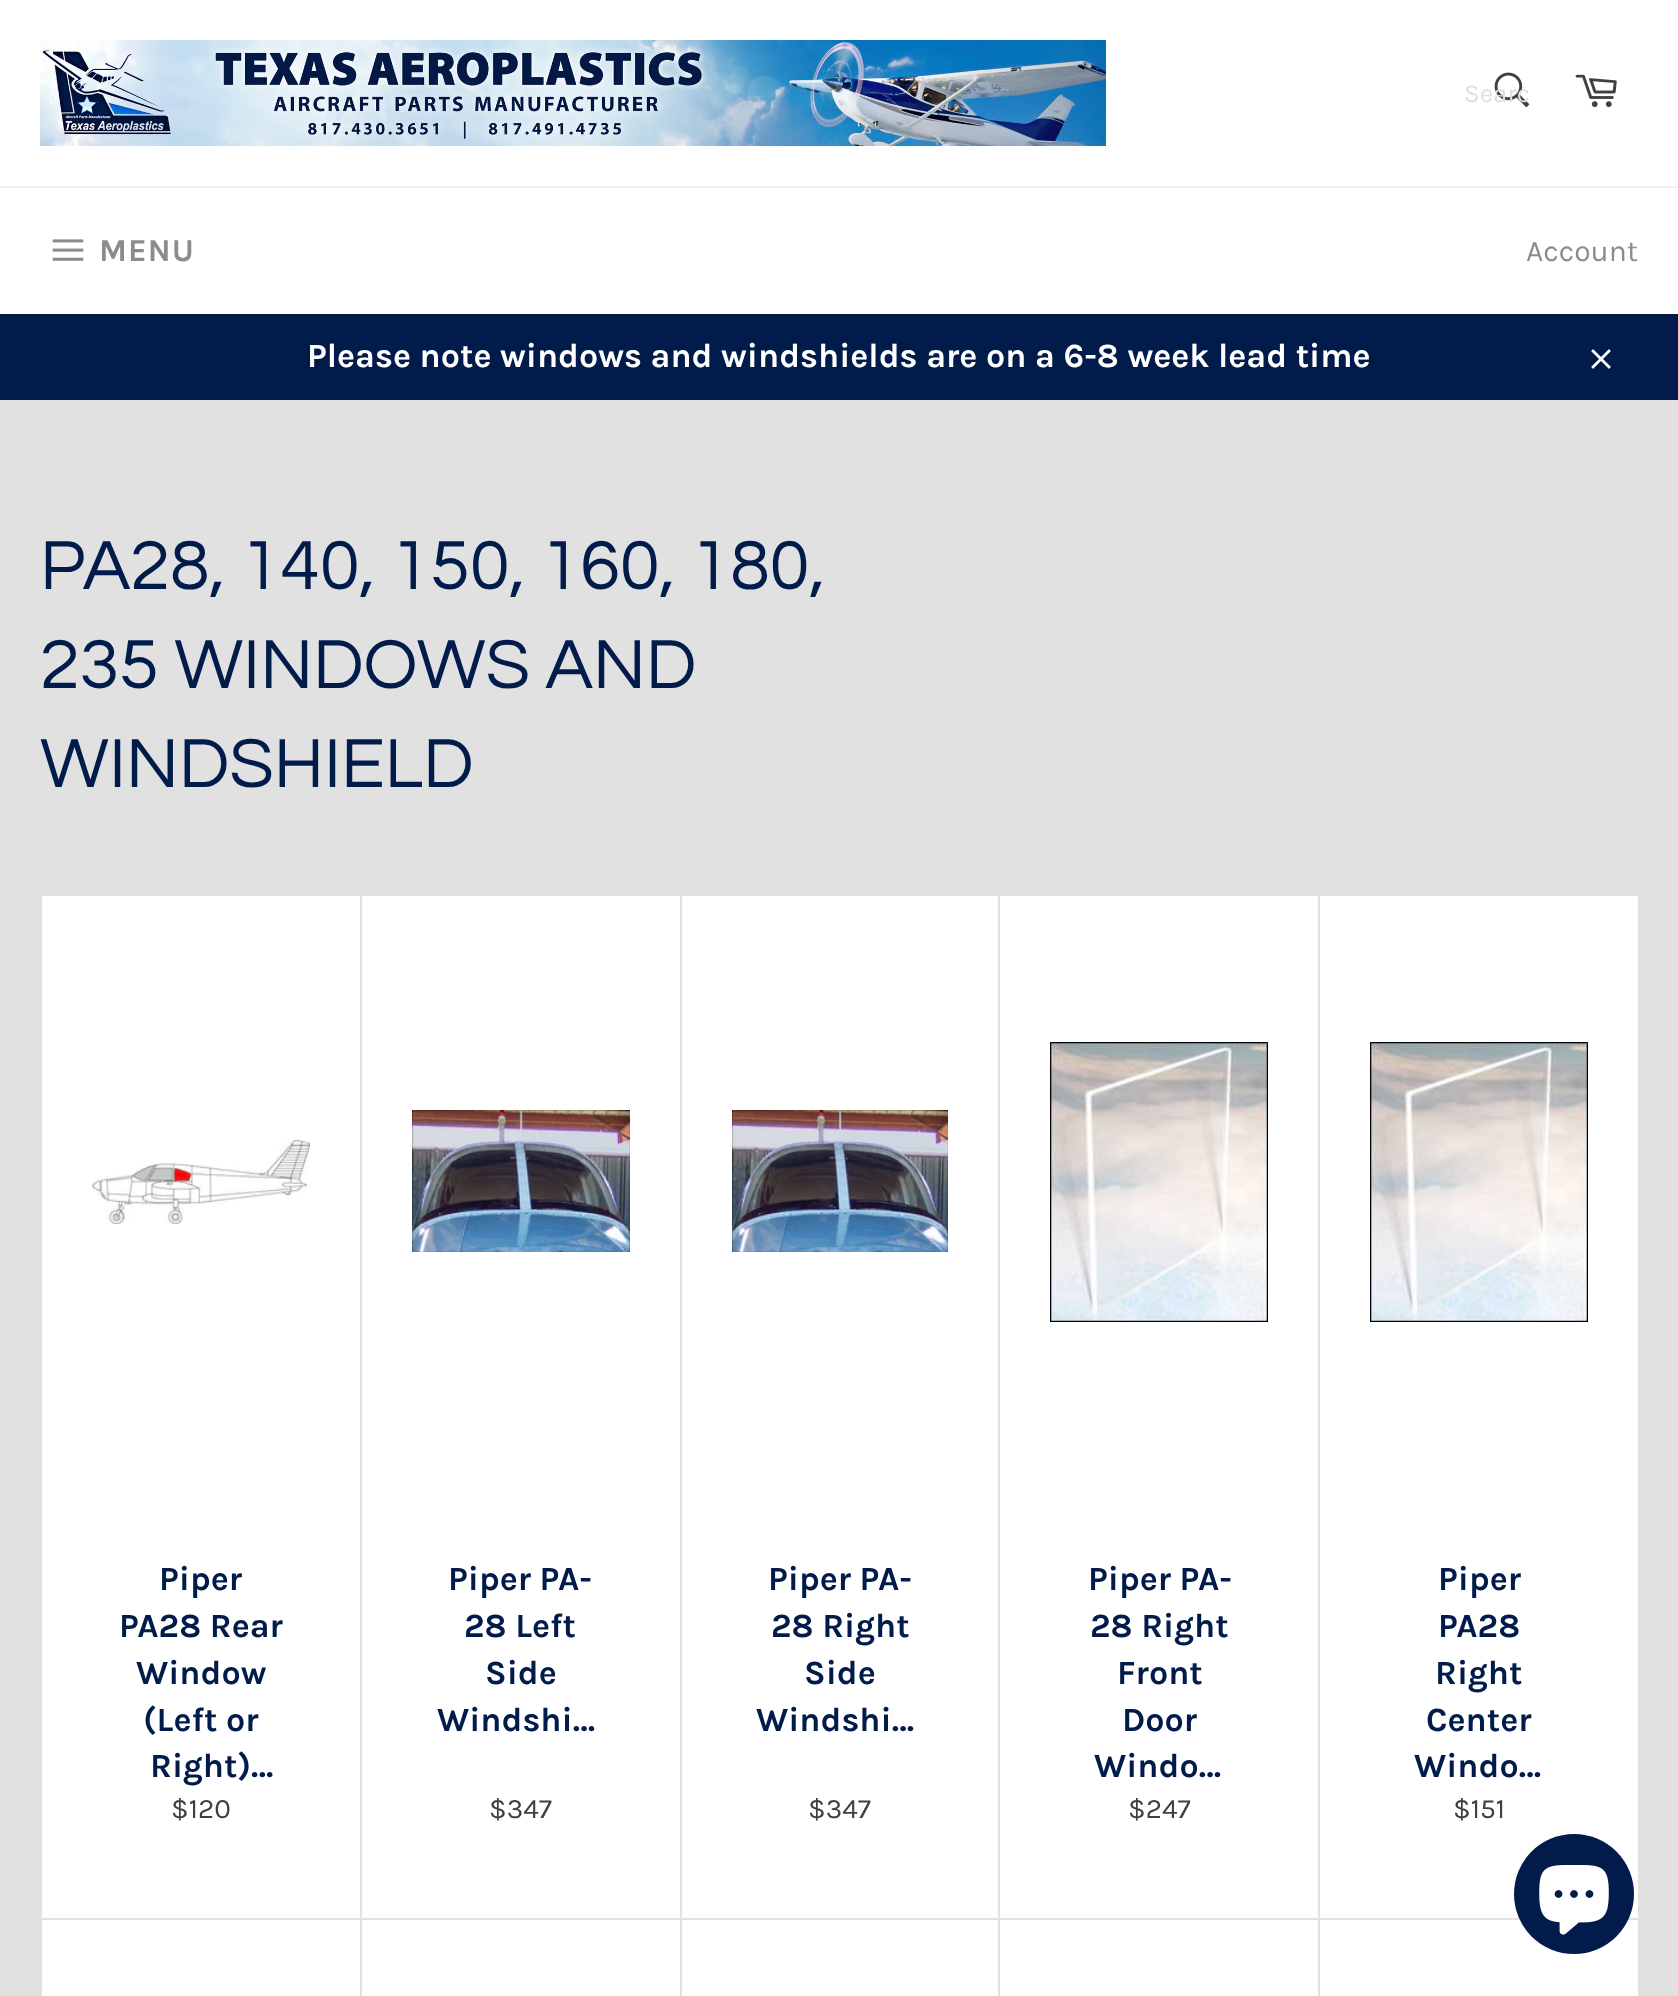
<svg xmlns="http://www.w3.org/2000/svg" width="1678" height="1996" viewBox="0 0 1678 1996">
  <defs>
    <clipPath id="clip1"><path d="M1464 78h64v30H1464z"/></clipPath>
  </defs>
  <rect width="100%" height="100%" fill="#e1e1e1"/>
  <path d="M0 0h1678v186H0z" fill="#fff"/>
  <image x="40" y="40" width="1066" height="106" href="img/1.png"/>
  <image x="1494" y="72" width="36" height="36" href="img/2.png"/>
  <image x="1575" y="74" width="42" height="33" href="img/3.png"/>
  <path d="M0 188h1678v126H0z" fill="#fff"/>
  <path d="M0 186h1678v2H0z" fill="#f2f2f2"/>
  <image x="52" y="239" width="32" height="22" href="img/4.png"/>
  <path d="M0 314h1678v86H0z" fill="#011c4b"/>
  <image x="1591" y="349" width="20" height="20" href="img/5.png"/>
  <path d="M42 896h318v1022H42z" fill="#fff"/>
  <image x="92" y="1140" width="218" height="84" href="img/6.png"/>
  <path d="M362 896h318v1022H362z" fill="#fff"/>
  <image x="412" y="1110" width="218" height="142" href="img/7.png"/>
  <path d="M682 896h316v1022H682z" fill="#fff"/>
  <image x="732" y="1110" width="216" height="142" href="img/8.png"/>
  <path d="M1000 896h318v1022H1000z" fill="#fff"/>
  <image x="1050" y="1042" width="218" height="280" href="img/9.png"/>
  <path d="M1320 896h318v1022H1320z" fill="#fff"/>
  <image x="1370" y="1042" width="218" height="280" href="img/10.png"/>
  <path d="M42 1920h318v76H42z" fill="#fff"/>
  <path d="M362 1920h318v76H362z" fill="#fff"/>
  <path d="M682 1920h316v76H682z" fill="#fff"/>
  <path d="M1000 1920h318v76H1000z" fill="#fff"/>
  <path d="M1320 1920h318v76H1320z" fill="#fff"/>
  <circle cx="1574" cy="1894" r="60" fill="#011c4b"/>
  <image x="1539" y="1865" width="70" height="70" href="img/11.png"/>
  <g clip-path="url(#clip1)">
    <text x="1464" y="102" font-family="Karla" font-size="26" fill="#dedede">Searc</text>
  </g>
  <text x="99" y="261" font-family="Karla" font-size="32" font-weight="bold" letter-spacing="1" fill="#8c8c8c">MENU</text>
  <text x="1526" y="261" font-family="Karla" font-size="30" fill="#8c8c8c">Account</text>
  <text x="307" y="367" font-family="Karla" font-size="34" font-weight="bold" fill="#fff">Please note windows and windshields are on a 6-8 week lead time</text>
  <g font-family="Questrial" font-size="72" fill="#011c4b">
    <text x="40" y="589">PA28, 140, 150, 160, 180,</text>
    <text x="40" y="688">235 WINDOWS AND</text>
    <text x="40" y="787">WINDSHIELD</text>
  </g>
  <g font-family="Karla" font-size="34" font-weight="bold" fill="#011c4b">
    <text x="159" y="1590">Piper</text>
    <text x="119" y="1637">PA28 Rear</text>
    <text x="136" y="1684">Window</text>
    <text x="143" y="1731">(Left or</text>
    <text x="150" y="1777">Right)…</text>
  </g>
  <text x="171" y="1818" font-family="Karla" font-size="28" fill="#404040">$120</text>
  <g font-family="Karla" font-size="34" font-weight="bold" fill="#011c4b">
    <text x="448" y="1590">Piper PA-</text>
    <text x="464" y="1637">28 Left</text>
    <text x="485" y="1684">Side</text>
    <text x="437" y="1731">Windshi…</text>
  </g>
  <text x="489" y="1818" font-family="Karla" font-size="28" fill="#404040">$347</text>
  <g font-family="Karla" font-size="34" font-weight="bold" fill="#011c4b">
    <text x="768" y="1590">Piper PA-</text>
    <text x="771" y="1637">28 Right</text>
    <text x="804" y="1684">Side</text>
    <text x="756" y="1731">Windshi…</text>
  </g>
  <text x="808" y="1818" font-family="Karla" font-size="28" fill="#404040">$347</text>
  <g font-family="Karla" font-size="34" font-weight="bold" fill="#011c4b">
    <text x="1088" y="1590">Piper PA-</text>
    <text x="1090" y="1637">28 Right</text>
    <text x="1117" y="1684">Front</text>
    <text x="1122" y="1731">Door</text>
    <text x="1094" y="1777">Windo…</text>
  </g>
  <text x="1128" y="1818" font-family="Karla" font-size="28" fill="#404040">$247</text>
  <g font-family="Karla" font-size="34" font-weight="bold" fill="#011c4b">
    <text x="1438" y="1590">Piper</text>
    <text x="1438" y="1637">PA28</text>
    <text x="1435" y="1684">Right</text>
    <text x="1426" y="1731">Center</text>
    <text x="1414" y="1777">Windo…</text>
  </g>
  <text x="1453" y="1818" font-family="Karla" font-size="28" fill="#404040">$151</text>
</svg>
